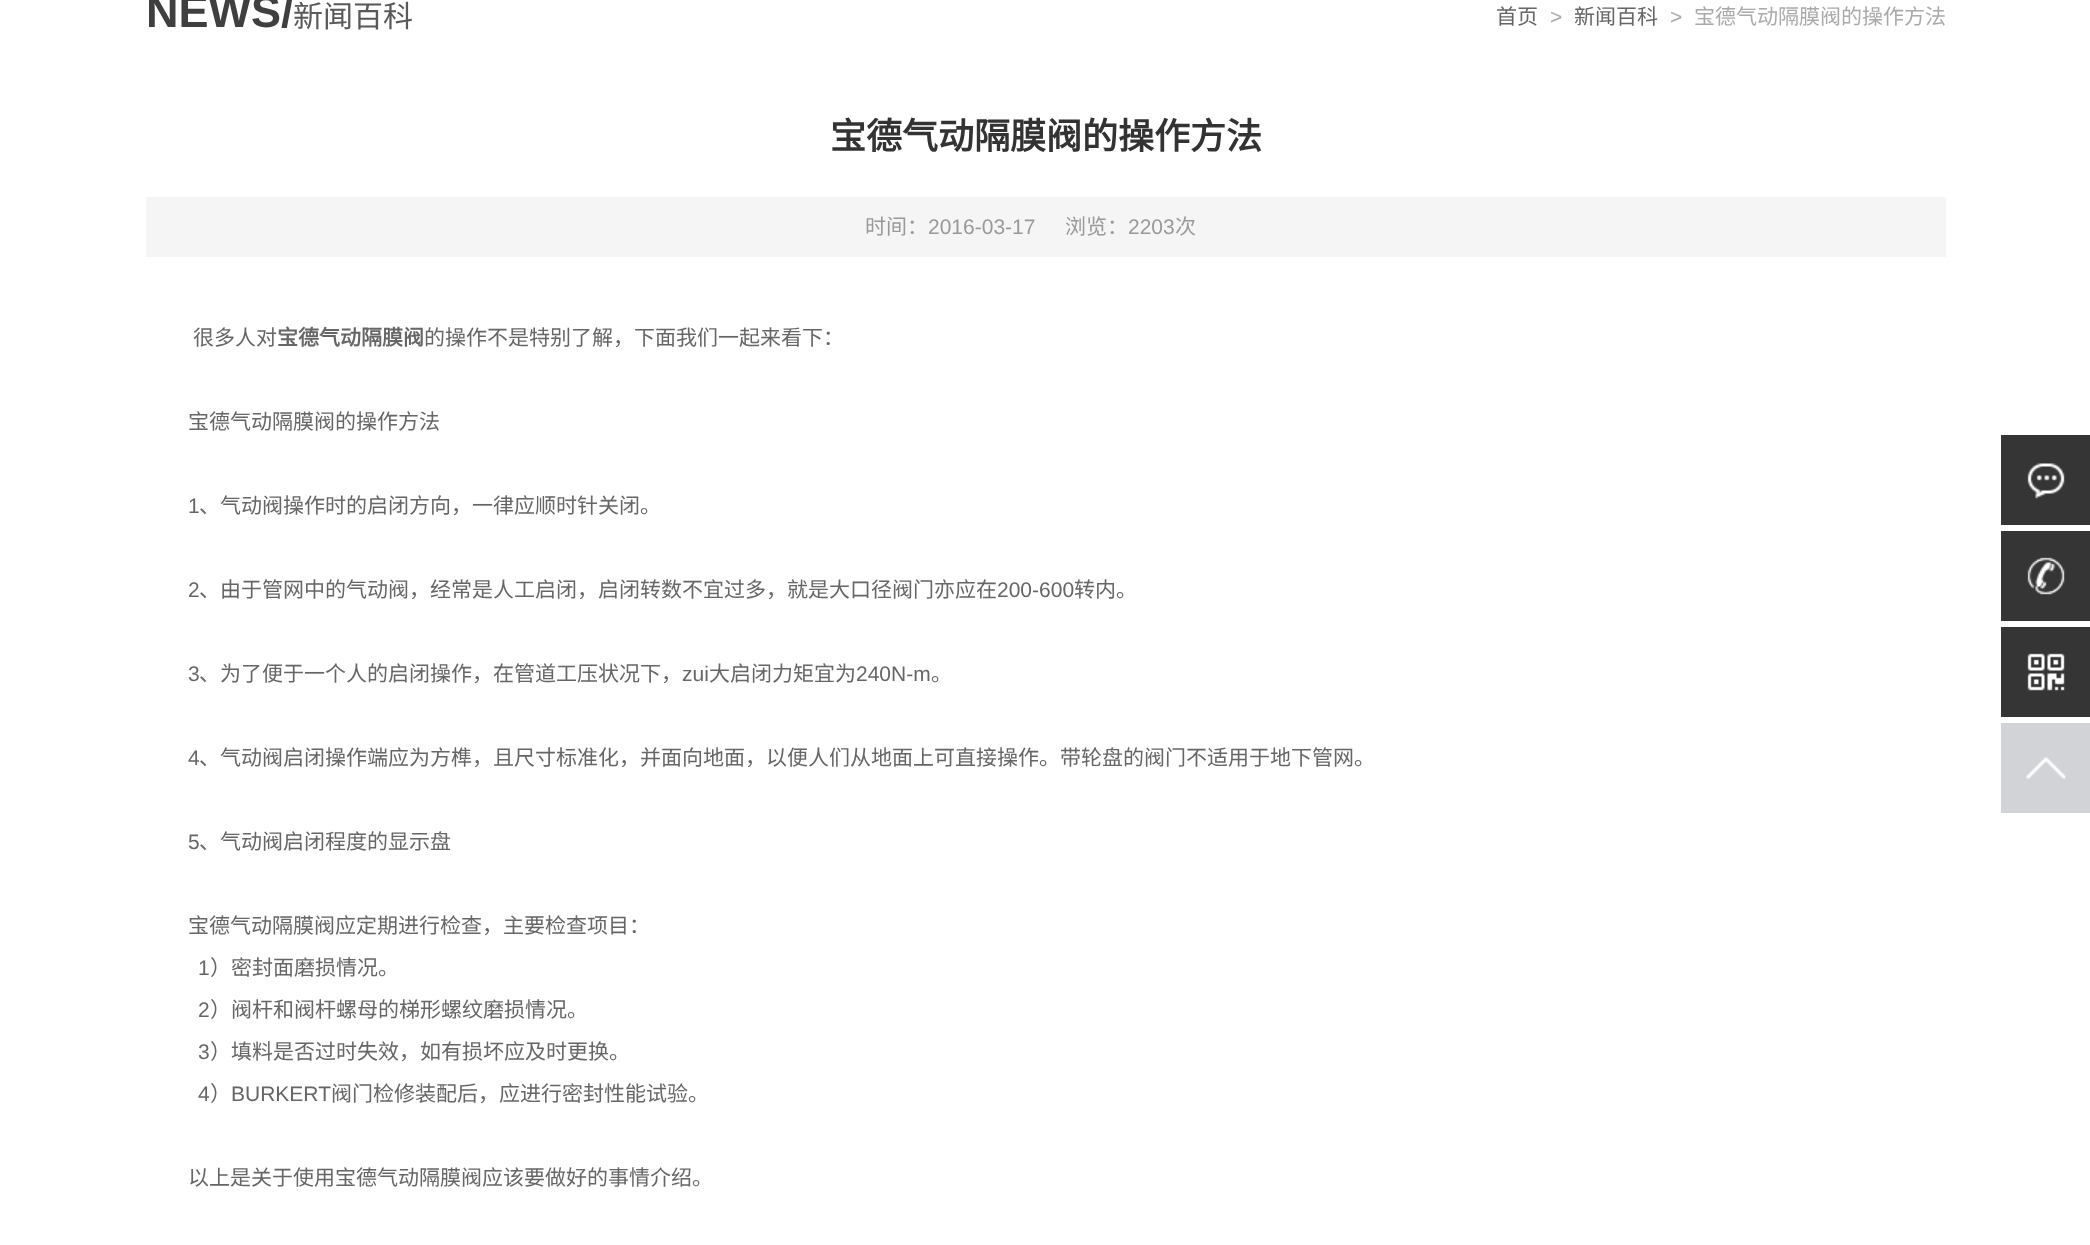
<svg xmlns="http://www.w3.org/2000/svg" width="2090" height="1245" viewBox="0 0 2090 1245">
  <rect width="100%" height="100%" fill="#fff"/>
  <path d="M146 197h1800v60H146z" fill="#f5f5f5"/>
  <path d="M2001 435h89v90H2001z" fill="#353535"/>
  <image x="2027" y="463" width="38" height="36" href="img/1.png"/>
  <path d="M2001 531h89v90H2001z" fill="#353535"/>
  <image x="2027" y="557" width="38" height="38" href="img/2.png"/>
  <path d="M2001 627h89v90H2001z" fill="#353535"/>
  <image x="2027" y="653" width="38" height="38" href="img/3.png"/>
  <path d="M2001 723h89v90H2001z" fill="#d2d3d6"/>
  <image x="2026" y="757" width="40" height="22" href="img/4.png"/>
  <text x="146" y="27" font-family="Liberation Sans" font-size="45" font-weight="bold" fill="#3f3f3f">NEWS/</text>
  <text x="293" y="27" font-family="Noto Sans CJK SC" font-size="30" fill="#595959">新闻百科</text>
  <text x="1496" y="24" font-family="Noto Sans CJK SC" font-size="21" fill="#666">首页</text>
  <text x="1550" y="24" font-family="Liberation Sans" font-size="21" fill="#aaa">&gt;</text>
  <text x="1574" y="24" font-family="Noto Sans CJK SC" font-size="21" fill="#666">新闻百科</text>
  <text x="1670" y="24" font-family="Liberation Sans" font-size="21" fill="#aaa">&gt;</text>
  <text x="1694" y="24" font-family="Noto Sans CJK SC" font-size="21" fill="#aaa">宝德气动隔膜阀的操作方法</text>
  <text x="830" y="149" font-family="Noto Sans CJK SC" font-size="36" font-weight="bold" fill="#333">宝德气动隔膜阀的操作方法</text>
  <text x="865" y="234" font-family="Noto Sans CJK SC" font-size="21" fill="#999">时间：</text>
  <text x="928" y="234" font-family="Liberation Sans" font-size="21" fill="#999">2016-03-17</text>
  <text x="1065" y="234" font-family="Noto Sans CJK SC" font-size="21" fill="#999">浏览：</text>
  <text x="1128" y="234" font-family="Liberation Sans" font-size="21" fill="#999">2203</text>
  <text x="1175" y="234" font-family="Noto Sans CJK SC" font-size="21" fill="#999">次</text>
  <text x="193" y="345" font-family="Noto Sans CJK SC" font-size="21" fill="#666">很多人对</text>
  <text x="277" y="345" font-family="Noto Sans CJK SC" font-size="21" font-weight="bold" fill="#666">宝德气动隔膜阀</text>
  <g font-family="Noto Sans CJK SC" font-size="21" fill="#666">
    <text x="424" y="345">的操作不是特别了解，下面我们一起来看下：</text>
    <text x="188" y="429">宝德气动隔膜阀的操作方法</text>
  </g>
  <text x="188" y="513" font-family="Liberation Sans" font-size="21" fill="#666">1</text>
  <text x="199" y="513" font-family="Noto Sans CJK SC" font-size="21" fill="#666">、气动阀操作时的启闭方向，一律应顺时针关闭。</text>
  <text x="188" y="597" font-family="Liberation Sans" font-size="21" fill="#666">2</text>
  <text x="199" y="597" font-family="Noto Sans CJK SC" font-size="21" fill="#666">、由于管网中的气动阀，经常是人工启闭，启闭转数不宜过多，就是大口径阀门亦应在</text>
  <text x="997" y="597" font-family="Liberation Sans" font-size="21" fill="#666">200-600</text>
  <text x="1074" y="597" font-family="Noto Sans CJK SC" font-size="21" fill="#666">转内。</text>
  <text x="188" y="681" font-family="Liberation Sans" font-size="21" fill="#666">3</text>
  <text x="199" y="681" font-family="Noto Sans CJK SC" font-size="21" fill="#666">、为了便于一个人的启闭操作，在管道工压状况下，</text>
  <text x="682" y="681" font-family="Liberation Sans" font-size="21" fill="#666">zui</text>
  <text x="709" y="681" font-family="Noto Sans CJK SC" font-size="21" fill="#666">大启闭力矩宜为</text>
  <text x="856" y="681" font-family="Liberation Sans" font-size="21" fill="#666">240N-m</text>
  <text x="931" y="681" font-family="Noto Sans CJK SC" font-size="21" fill="#666">。</text>
  <text x="188" y="765" font-family="Liberation Sans" font-size="21" fill="#666">4</text>
  <text x="199" y="765" font-family="Noto Sans CJK SC" font-size="21" fill="#666">、气动阀启闭操作端应为方榫，且尺寸标准化，并面向地面，以便人们从地面上可直接操作。带轮盘的阀门不适用于地下管网。</text>
  <text x="188" y="849" font-family="Liberation Sans" font-size="21" fill="#666">5</text>
  <g font-family="Noto Sans CJK SC" font-size="21" fill="#666">
    <text x="199" y="849">、气动阀启闭程度的显示盘</text>
    <text x="188" y="933">宝德气动隔膜阀应定期进行检查，主要检查项目：</text>
  </g>
  <text x="198" y="975" font-family="Liberation Sans" font-size="21" fill="#666">1</text>
  <text x="210" y="975" font-family="Noto Sans CJK SC" font-size="21" fill="#666">）密封面磨损情况。</text>
  <text x="198" y="1017" font-family="Liberation Sans" font-size="21" fill="#666">2</text>
  <text x="210" y="1017" font-family="Noto Sans CJK SC" font-size="21" fill="#666">）阀杆和阀杆螺母的梯形螺纹磨损情况。</text>
  <text x="198" y="1059" font-family="Liberation Sans" font-size="21" fill="#666">3</text>
  <text x="210" y="1059" font-family="Noto Sans CJK SC" font-size="21" fill="#666">）填料是否过时失效，如有损坏应及时更换。</text>
  <text x="198" y="1101" font-family="Liberation Sans" font-size="21" fill="#666">4</text>
  <text x="210" y="1101" font-family="Noto Sans CJK SC" font-size="21" fill="#666">）</text>
  <text x="231" y="1101" font-family="Liberation Sans" font-size="21" fill="#666">BURKERT</text>
  <g font-family="Noto Sans CJK SC" font-size="21" fill="#666">
    <text x="331" y="1101">阀门检修装配后，应进行密封性能试验。</text>
    <text x="188" y="1185">以上是关于使用宝德气动隔膜阀应该要做好的事情介绍。</text>
  </g>
</svg>
